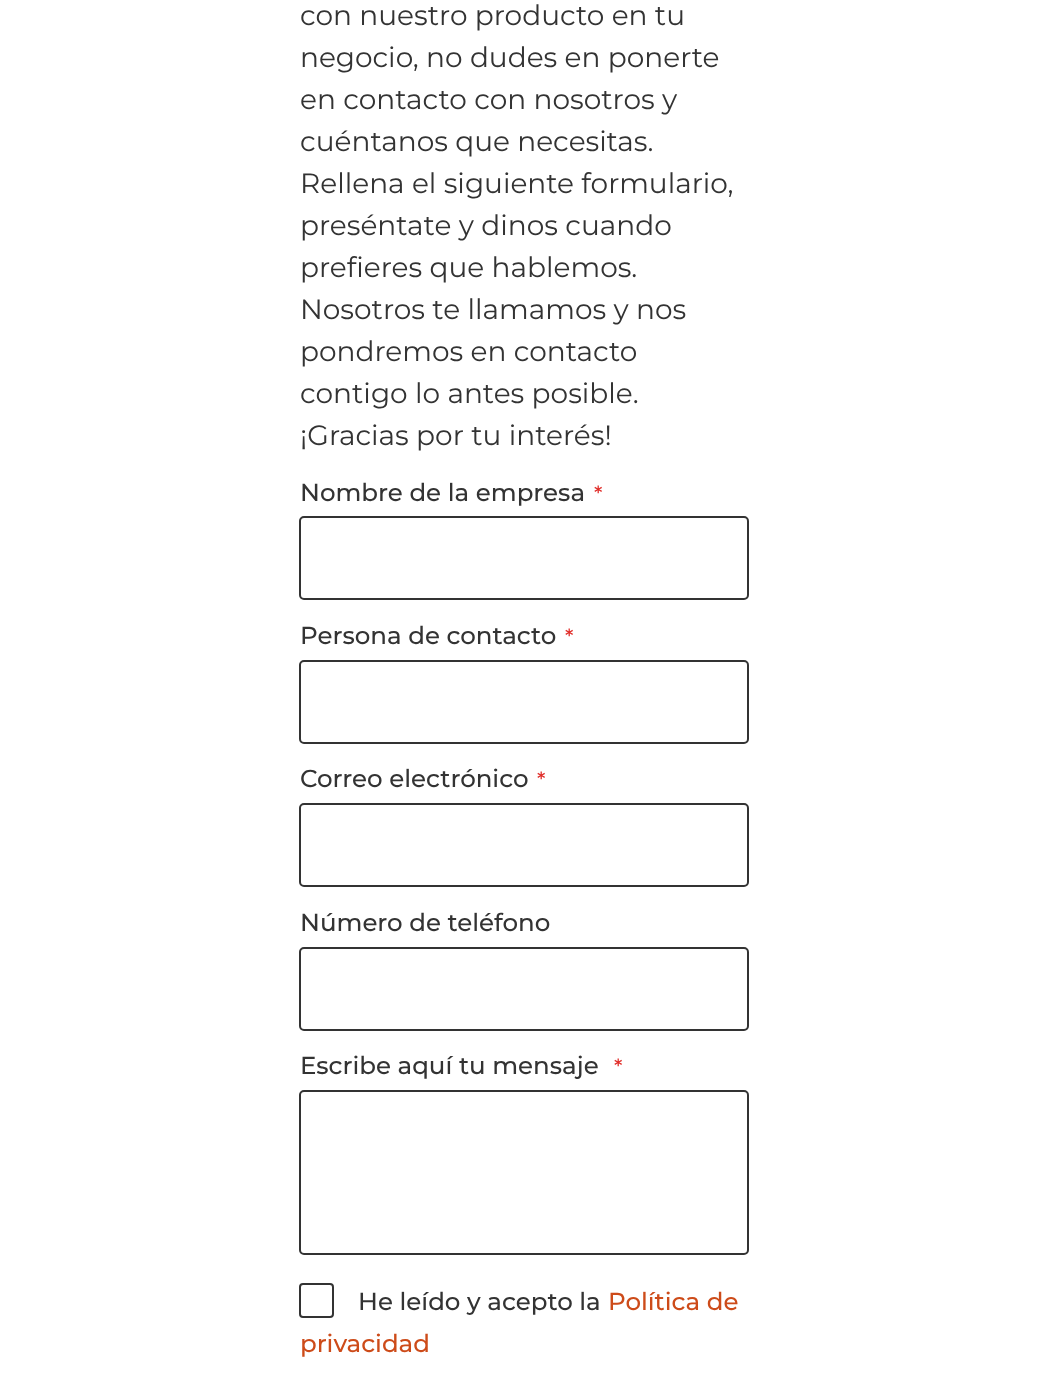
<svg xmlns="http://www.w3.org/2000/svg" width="1047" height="1400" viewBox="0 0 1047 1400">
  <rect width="100%" height="100%" fill="#fff"/>
  <rect x="300" y="517" width="448" height="82" rx="4" fill="none" stroke="#333" stroke-width="2"/>
  <rect x="300" y="661" width="448" height="82" rx="4" fill="none" stroke="#333" stroke-width="2"/>
  <rect x="300" y="804" width="448" height="82" rx="4" fill="none" stroke="#333" stroke-width="2"/>
  <rect x="300" y="948" width="448" height="82" rx="4" fill="none" stroke="#333" stroke-width="2"/>
  <rect x="300" y="1091" width="448" height="163" rx="4" fill="none" stroke="#333" stroke-width="2"/>
  <rect x="300" y="1284" width="33" height="33" rx="3" fill="none" stroke="#333" stroke-width="2"/>
  <g font-family="Montserrat" font-size="28" fill="#333">
    <text x="300" y="25">con nuestro producto en tu</text>
    <text x="300" y="67">negocio, no dudes en ponerte</text>
    <text x="300" y="109">en contacto con nosotros y</text>
    <text x="300" y="151">cuéntanos que necesitas.</text>
    <text x="300" y="193">Rellena el siguiente formulario,</text>
    <text x="300" y="235">preséntate y dinos cuando</text>
    <text x="300" y="277">prefieres que hablemos.</text>
    <text x="300" y="319">Nosotros te llamamos y nos</text>
    <text x="300" y="361">pondremos en contacto</text>
    <text x="300" y="403">contigo lo antes posible.</text>
    <text x="300" y="445">¡Gracias por tu interés!</text>
  </g>
  <text x="300" y="501" font-family="Montserrat" font-size="24.5" font-weight="500" fill="#333">Nombre de la empresa</text>
  <text x="594" y="501" font-family="Montserrat" font-size="21" font-weight="500" fill="#e02b27">*</text>
  <text x="300" y="644" font-family="Montserrat" font-size="24.5" font-weight="500" fill="#333">Persona de contacto</text>
  <text x="565" y="644" font-family="Montserrat" font-size="21" font-weight="500" fill="#e02b27">*</text>
  <text x="300" y="787" font-family="Montserrat" font-size="24.5" font-weight="500" fill="#333">Correo electrónico</text>
  <text x="537" y="787" font-family="Montserrat" font-size="21" font-weight="500" fill="#e02b27">*</text>
  <g font-family="Montserrat" font-size="24.5" font-weight="500" fill="#333">
    <text x="300" y="931">Número de teléfono</text>
    <text x="300" y="1074">Escribe aquí tu mensaje</text>
  </g>
  <text x="614" y="1074" font-family="Montserrat" font-size="21" font-weight="500" fill="#e02b27">*</text>
  <text x="358" y="1310" font-family="Montserrat" font-size="24.5" font-weight="500" fill="#333">He leído y acepto la</text>
  <g font-family="Montserrat" font-size="24.5" font-weight="500" fill="#cd4b19">
    <text x="608" y="1310">Política de</text>
    <text x="300" y="1352">privacidad</text>
  </g>
</svg>
